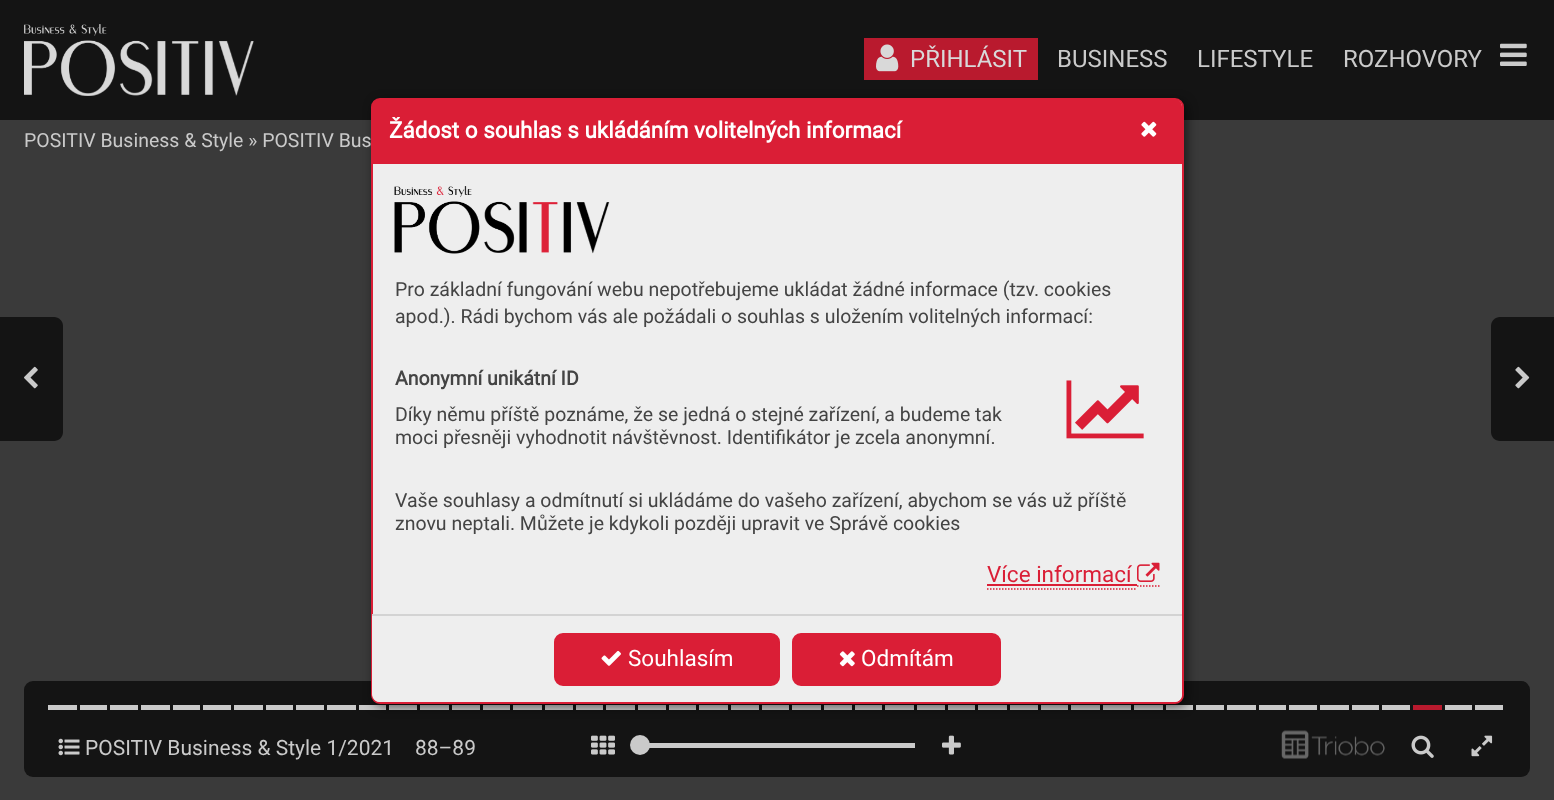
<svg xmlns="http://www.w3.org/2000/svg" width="1554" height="800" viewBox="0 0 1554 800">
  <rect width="100%" height="100%" fill="#3a3a3a"/>
  <path d="M0 0h1554v120H0z" fill="#141414"/>
  <image x="24" y="24" width="230" height="72" href="img/1.png"/>
  <path d="M864 38h174v42H864z" fill="#b91a2e"/>
  <image x="876" y="44" width="23" height="28" href="img/2.png"/>
  <image x="1500" y="43" width="27" height="23" href="img/3.png"/>
  <path d="M0 317H54C59 317 63 321 63 326V432C63 437 59 441 54 441H0Z" fill="#141414"/>
  <image x="24" y="366" width="14" height="23" href="img/4.png"/>
  <path d="M1500 317H1554V441H1500C1495 441 1491 437 1491 432V326C1491 321 1495 317 1500 317Z" fill="#141414"/>
  <image x="1515" y="366" width="15" height="23" href="img/5.png"/>
  <rect x="24" y="681" width="1506" height="96" rx="9" fill="#141414"/>
  <path d="M48 705h29v5H48z" fill="#cacaca"/>
  <path d="M80 705h27v5H80z" fill="#cacaca"/>
  <path d="M110 705h28v5H110z" fill="#cacaca"/>
  <path d="M141 705h29v5H141z" fill="#cacaca"/>
  <path d="M173 705h27v5H173z" fill="#cacaca"/>
  <path d="M203 705h28v5H203z" fill="#cacaca"/>
  <path d="M234 705h29v5H234z" fill="#cacaca"/>
  <path d="M266 705h27v5H266z" fill="#cacaca"/>
  <path d="M296 705h28v5H296z" fill="#cacaca"/>
  <path d="M327 705h29v5H327z" fill="#cacaca"/>
  <path d="M359 705h27v5H359z" fill="#cacaca"/>
  <path d="M389 705h28v5H389z" fill="#cacaca"/>
  <path d="M420 705h29v5H420z" fill="#cacaca"/>
  <path d="M452 705h28v5H452z" fill="#cacaca"/>
  <path d="M483 705h27v5H483z" fill="#cacaca"/>
  <path d="M513 705h29v5H513z" fill="#cacaca"/>
  <path d="M545 705h28v5H545z" fill="#cacaca"/>
  <path d="M576 705h27v5H576z" fill="#cacaca"/>
  <path d="M606 705h29v5H606z" fill="#cacaca"/>
  <path d="M638 705h28v5H638z" fill="#cacaca"/>
  <path d="M669 705h27v5H669z" fill="#cacaca"/>
  <path d="M699 705h29v5H699z" fill="#cacaca"/>
  <path d="M731 705h28v5H731z" fill="#cacaca"/>
  <path d="M762 705h27v5H762z" fill="#cacaca"/>
  <path d="M792 705h29v5H792z" fill="#cacaca"/>
  <path d="M824 705h28v5H824z" fill="#cacaca"/>
  <path d="M855 705h27v5H855z" fill="#cacaca"/>
  <path d="M885 705h29v5H885z" fill="#cacaca"/>
  <path d="M917 705h28v5H917z" fill="#cacaca"/>
  <path d="M948 705h27v5H948z" fill="#cacaca"/>
  <path d="M978 705h29v5H978z" fill="#cacaca"/>
  <path d="M1010 705h28v5H1010z" fill="#cacaca"/>
  <path d="M1041 705h27v5H1041z" fill="#cacaca"/>
  <path d="M1071 705h29v5H1071z" fill="#cacaca"/>
  <path d="M1103 705h28v5H1103z" fill="#cacaca"/>
  <path d="M1134 705h29v5H1134z" fill="#cacaca"/>
  <path d="M1166 705h27v5H1166z" fill="#cacaca"/>
  <path d="M1196 705h28v5H1196z" fill="#cacaca"/>
  <path d="M1227 705h29v5H1227z" fill="#cacaca"/>
  <path d="M1259 705h27v5H1259z" fill="#cacaca"/>
  <path d="M1289 705h28v5H1289z" fill="#cacaca"/>
  <path d="M1320 705h29v5H1320z" fill="#cacaca"/>
  <path d="M1352 705h27v5H1352z" fill="#cacaca"/>
  <path d="M1382 705h28v5H1382z" fill="#cacaca"/>
  <path d="M1445 705h27v5H1445z" fill="#cacaca"/>
  <path d="M1475 705h28v5H1475z" fill="#cacaca"/>
  <path d="M1413 705h29v5H1413z" fill="#b91a2e"/>
  <image x="58" y="738" width="22" height="18" href="img/6.png"/>
  <image x="591" y="735" width="24" height="20" href="img/7.png"/>
  <path d="M649 743h266v5H649z" fill="#cacaca"/>
  <circle cx="640" cy="745" r="10" fill="#cacaca"/>
  <image x="942" y="735" width="19" height="20" href="img/8.png"/>
  <image x="1281" y="730" width="104" height="29" href="img/9.png"/>
  <image x="1411" y="735" width="23" height="23" href="img/10.png"/>
  <image x="1471" y="735" width="22" height="22" href="img/11.png"/>
  <rect x="374" y="101" width="813" height="606" rx="9" fill="#00000087" filter="blur(5.5px)"/>
  <text x="910" y="67" font-family="Roboto" font-size="24" fill="#d9d9d9">PŘIHLÁSIT</text>
  <g font-family="Roboto" font-size="24" fill="#cacaca">
    <text x="1057" y="67">BUSINESS</text>
    <text x="1197" y="67">LIFESTYLE</text>
    <text x="1343" y="67">ROZHOVORY</text>
  </g>
  <text x="24" y="147" font-family="Roboto" font-size="19.5" fill="#cacaca">POSITIV Business &amp; Style » POSITIV Bus</text>
  <g font-family="Roboto" font-size="21" fill="#cacaca">
    <text x="85" y="755">POSITIV Business &amp; Style 1/2021</text>
    <text x="415" y="755">88–89</text>
  </g>
  <rect x="372" y="99" width="811" height="604" rx="8" fill="#eee" stroke="#da1e36" stroke-width="2"/>
  <path d="M380 99H1174C1178.5 99 1182 102.5 1182 107V164H372V107C372 102.5 375.5 99 380 99Z" fill="#da1e36"/>
  <text x="389" y="138" font-family="Roboto" font-size="22.5" font-weight="bold" fill="#fff">Žádost o souhlas s ukládáním volitelných informací</text>
  <image x="1141" y="121" width="16" height="16" href="img/12.png"/>
  <image x="394" y="186" width="216" height="68" href="img/13.png"/>
  <g font-family="Roboto" font-size="19.5" fill="#444">
    <text x="395" y="296">Pro základní fungování webu nepotřebujeme ukládat žádné informace (tzv. cookies</text>
    <text x="395" y="323">apod.). Rádi bychom vás ale požádali o souhlas s uložením volitelných informací:</text>
  </g>
  <text x="395" y="385" font-family="Roboto" font-size="19.5" font-weight="bold" fill="#444">Anonymní unikátní ID</text>
  <image x="1066" y="380" width="78" height="59" href="img/14.png"/>
  <g font-family="Roboto" font-size="19.5" fill="#444">
    <text x="395" y="421">Díky němu příště poznáme, že se jedná o stejné zařízení, a budeme tak</text>
    <text x="395" y="444">moci přesněji vyhodnotit návštěvnost. Identifikátor je zcela anonymní.</text>
    <text x="395" y="507">Vaše souhlasy a odmítnutí si ukládáme do vašeho zařízení, abychom se vás už příště</text>
    <text x="395" y="530">znovu neptali. Můžete je kdykoli později upravit ve Správě cookies</text>
  </g>
  <path d="M987 589H1137" fill="none" stroke="#da1e36" stroke-width="1.5" stroke-dasharray="1.5 1.5"/>
  <path d="M1137 586H1159.5" fill="none" stroke="#da1e36" stroke-width="1.5" stroke-dasharray="1.5 1.5"/>
  <text x="987" y="582" font-family="Roboto" font-size="22.5" fill="#da1e36">Více informací</text>
  <path d="M987 584h150v2H987z" fill="#da1e36"/>
  <image x="1137" y="562" width="23" height="20" href="img/15.png"/>
  <path d="M372 614H1182V694C1182 698.5 1178.5 702 1174 702H380C375.5 702 372 698.5 372 694Z" fill="#eee"/>
  <path d="M372 614h810v2H372z" fill="#d3d3d3"/>
  <rect x="555" y="634" width="224" height="51" rx="8" fill="#da1e36" stroke="#da1e36" stroke-width="2"/>
  <image x="601" y="650" width="20" height="16" href="img/16.png"/>
  <text x="628" y="666" font-family="Roboto" font-size="22.5" fill="#fff">Souhlasím</text>
  <rect x="793" y="634" width="207" height="51" rx="8" fill="#da1e36" stroke="#da1e36" stroke-width="2"/>
  <image x="839" y="651" width="16" height="16" href="img/17.png"/>
  <text x="861" y="666" font-family="Roboto" font-size="22.5" fill="#fff">Odmítám</text>
</svg>
